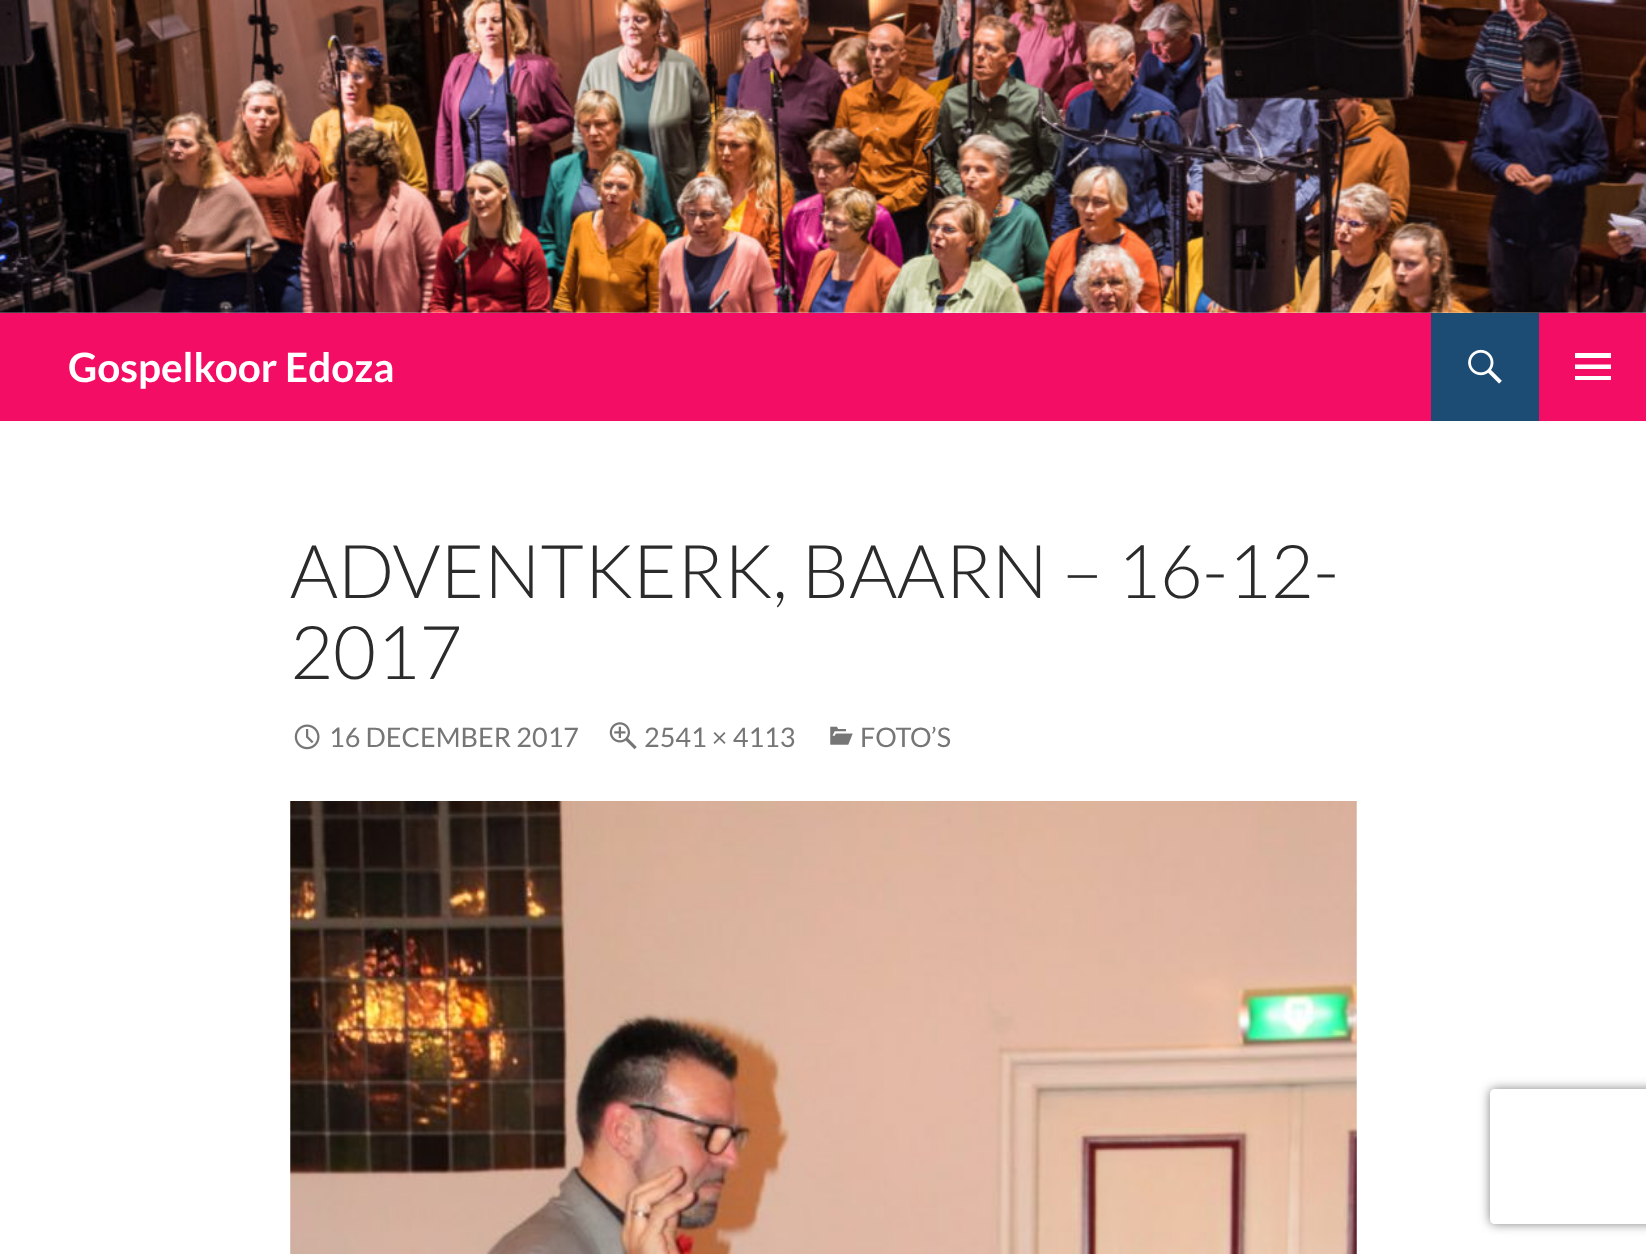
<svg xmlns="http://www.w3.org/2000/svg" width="1646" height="1254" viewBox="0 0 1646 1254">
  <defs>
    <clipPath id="clip1"><path d="M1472 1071H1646V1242H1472ZM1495 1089H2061C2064 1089 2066 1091 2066 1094V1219C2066 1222 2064 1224 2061 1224H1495C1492 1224 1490 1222 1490 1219V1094C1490 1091 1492 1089 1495 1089Z" clip-rule="evenodd"/></clipPath>
  </defs>
  <rect width="100%" height="100%" fill="#fff"/>
  <image x="0" y="0" width="1646" height="313" href="img/1.png"/>
  <path d="M0 313h1646v108H0z" fill="#f30d64"/>
  <path d="M1431 313h108v108H1431z" fill="#1c4c74"/>
  <image x="1468" y="349" width="34" height="35" href="img/2.png"/>
  <path d="M1575 380V376H1611V380ZM1575 369V364.5H1611V369ZM1575 358V353H1611V358Z" fill="#fff"/>
  <image x="294" y="724" width="26" height="26" href="img/3.png"/>
  <image x="609" y="722" width="28" height="28" href="img/4.png"/>
  <image x="830" y="726" width="23" height="19" href="img/5.png"/>
  <image x="290" y="801" width="1067" height="453" href="img/6.png"/>
  <g clip-path="url(#clip1)">
    <rect x="1490" y="1089" width="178" height="135" rx="5" fill="#808080" filter="blur(5.5px)"/>
  </g>
  <text x="68" y="382" font-family="Lato" font-size="40.5" font-weight="bold" fill="#fff">Gospelkoor Edoza</text>
  <g font-family="Lato" font-size="74.25" font-weight="300" fill="#2b2b2b">
    <text x="290" y="598">ADVENTKERK, BAARN – 16-12-</text>
    <text x="290" y="679">2017</text>
  </g>
  <g font-family="Lato" font-size="27" fill="#767676">
    <text x="329" y="747">16 DECEMBER 2017</text>
    <text x="644" y="747">2541 × 4113</text>
    <text x="860" y="747">FOTO’S</text>
  </g>
</svg>
